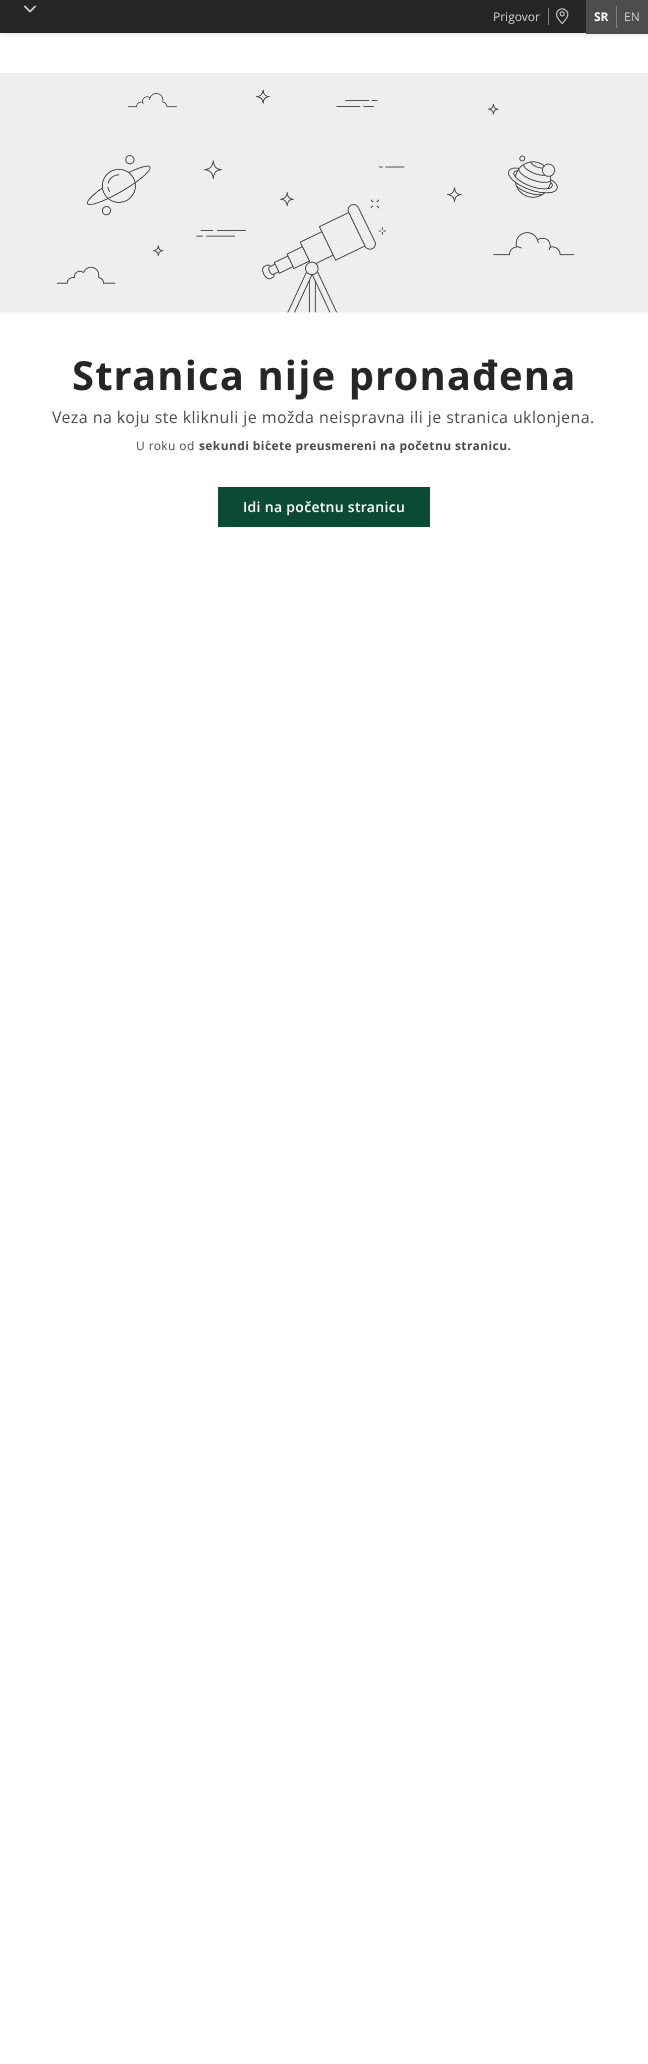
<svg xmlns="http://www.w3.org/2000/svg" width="648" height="2064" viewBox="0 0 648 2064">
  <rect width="100%" height="100%" fill="#fff"/>
  <path d="M0 2h648v33H0z" fill="#0000001a" filter="blur(2px)"/>
  <path d="M0 0h586v33H0z" fill="#262626"/>
  <image x="24" y="5" width="12" height="8" href="img/1.png"/>
  <path d="M548 8h1v17H548z" fill="#808080"/>
  <image x="556" y="8" width="13" height="17" href="img/2.png"/>
  <path d="M586 0h62v34H586z" fill="#4d4d4d"/>
  <path d="M616 6h1v22H616z" fill="#808080"/>
  <image x="0" y="73" width="648" height="240" href="img/3.png"/>
  <path d="M218 487h212v40H218z" fill="#0b4a35"/>
  <text x="493" y="21" font-family="Open Sans" font-size="12" fill="#ccc">Prigovor</text>
  <text x="594" y="21" font-family="Open Sans" font-size="12" font-weight="bold" fill="#fff">SR</text>
  <text x="624" y="21" font-family="Open Sans" font-size="12" fill="#ccc">EN</text>
  <text x="72" y="390" word-spacing="1" font-family="Open Sans" font-size="40" font-weight="bold" letter-spacing="1.1" fill="#262626">Stranica nije pronađena</text>
  <text x="52" y="423" word-spacing="0.1" font-family="Open Sans" font-size="16" letter-spacing="0.4" fill="#4d4d4d">Veza na koju ste kliknuli je možda neispravna ili je stranica uklonjena.</text>
  <text x="136" y="450" font-family="Open Sans" font-size="12" letter-spacing="0.4" fill="#4d4d4d">U roku od</text>
  <text x="199" y="450" font-family="Open Sans" font-size="12" font-weight="bold" letter-spacing="0.4" fill="#4d4d4d">sekundi bićete preusmereni na početnu stranicu.</text>
  <text x="243" y="512" font-family="Open Sans" font-size="14" font-weight="600" letter-spacing="0.3" fill="#fff">Idi na početnu stranicu</text>
</svg>
